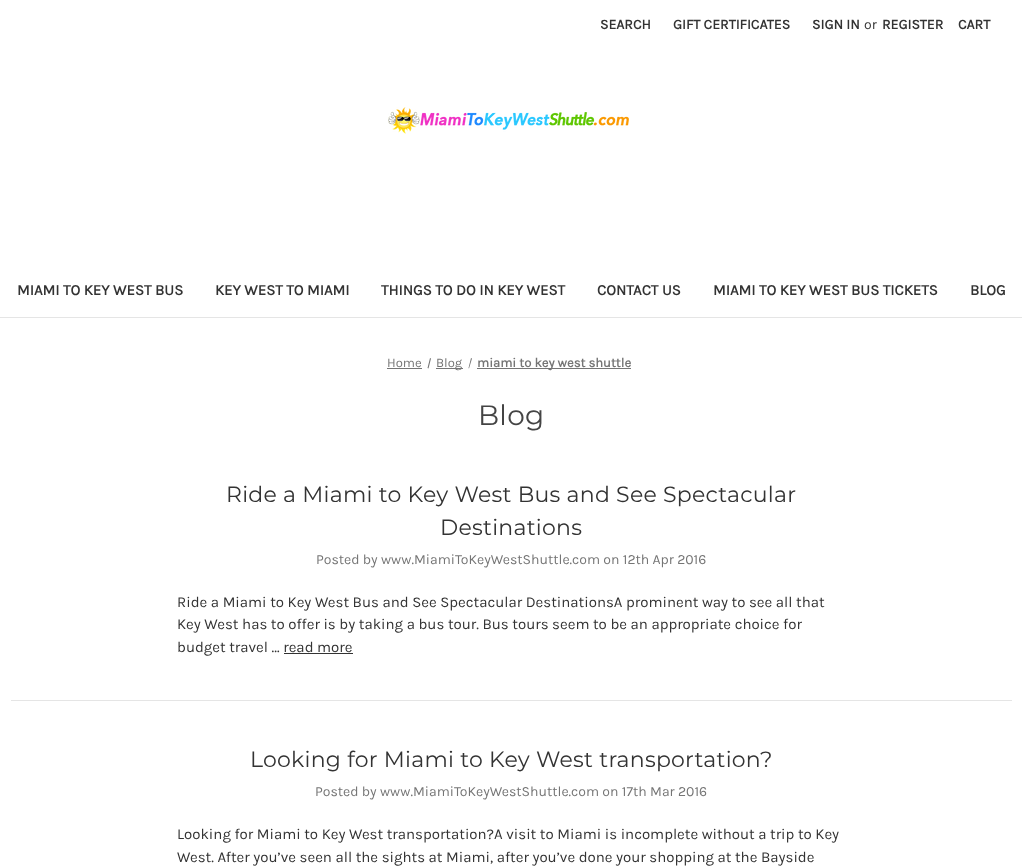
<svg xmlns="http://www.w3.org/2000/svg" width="1022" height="866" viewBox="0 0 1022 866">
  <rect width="100%" height="100%" fill="#fff"/>
  <path d="M0 317h1022v1H0z" fill="#e5e5e5"/>
  <image x="388" y="107" width="241" height="27" href="img/1.png"/>
  <path d="M387 368h35v1H387z" fill="#757575"/>
  <path d="M436 368h27v1H436z" fill="#757575"/>
  <path d="M430 358L431 358.5L428.5 368.5L427.5 368ZM471 358L472 358.5L469 368.5L468.5 368Z" fill="#757575"/>
  <path d="M477 368h154v1H477z" fill="#757575"/>
  <path d="M284 653h69v1H284z" fill="#333"/>
  <path d="M11 700h1001v1H11z" fill="#e5e5e5"/>
  <g font-family="Karla" font-size="14" font-weight="bold" fill="#333">
    <text x="600" y="29">SEARCH</text>
    <text x="673" y="29">GIFT CERTIFICATES</text>
    <text x="812" y="29">SIGN IN</text>
  </g>
  <text x="864" y="29" font-family="Karla" font-size="14" fill="#333">or</text>
  <g font-family="Karla" font-size="14" font-weight="bold" fill="#333">
    <text x="882" y="29">REGISTER</text>
    <text x="958" y="29">CART</text>
  </g>
  <g font-family="Karla" font-size="15" font-weight="bold" fill="#333">
    <text x="17" y="295">MIAMI TO KEY WEST BUS</text>
    <text x="215" y="295">KEY WEST TO MIAMI</text>
    <text x="381" y="295">THINGS TO DO IN KEY WEST</text>
    <text x="597" y="295">CONTACT US</text>
    <text x="713" y="295">MIAMI TO KEY WEST BUS TICKETS</text>
    <text x="970" y="295">BLOG</text>
  </g>
  <g font-family="Karla" font-size="13" fill="#757575">
    <text x="387" y="367">Home</text>
    <text x="436" y="367">Blog</text>
  </g>
  <text x="477" y="367" font-family="Karla" font-size="13" font-weight="bold" fill="#757575">miami to key west shuttle</text>
  <text x="478" y="425" font-family="Montserrat" font-size="28" letter-spacing="0.25" fill="#444">Blog</text>
  <g font-family="Montserrat" font-size="22" letter-spacing="0.25" fill="#333">
    <text x="226" y="502">Ride a Miami to Key West Bus and See Spectacular</text>
    <text x="440" y="535">Destinations</text>
  </g>
  <text x="316" y="564" font-family="Karla" font-size="14" fill="#757575">Posted by www.MiamiToKeyWestShuttle.com on 12th Apr 2016</text>
  <g font-family="Karla" font-size="15" fill="#333">
    <text x="177" y="607">Ride a Miami to Key West Bus and See Spectacular DestinationsA prominent way to see all that</text>
    <text x="177" y="629">Key West has to offer is by taking a bus tour. Bus tours seem to be an appropriate choice for</text>
    <text x="177" y="652">budget travel … read more</text>
  </g>
  <text x="250" y="767" font-family="Montserrat" font-size="22" letter-spacing="0.25" fill="#333">Looking for Miami to Key West transportation?</text>
  <text x="315" y="796" font-family="Karla" font-size="14" fill="#757575">Posted by www.MiamiToKeyWestShuttle.com on 17th Mar 2016</text>
  <g font-family="Karla" font-size="15" fill="#333">
    <text x="177" y="839">Looking for Miami to Key West transportation?A visit to Miami is incomplete without a trip to Key</text>
    <text x="177" y="862">West. After you’ve seen all the sights at Miami, after you’ve done your shopping at the Bayside</text>
  </g>
</svg>
